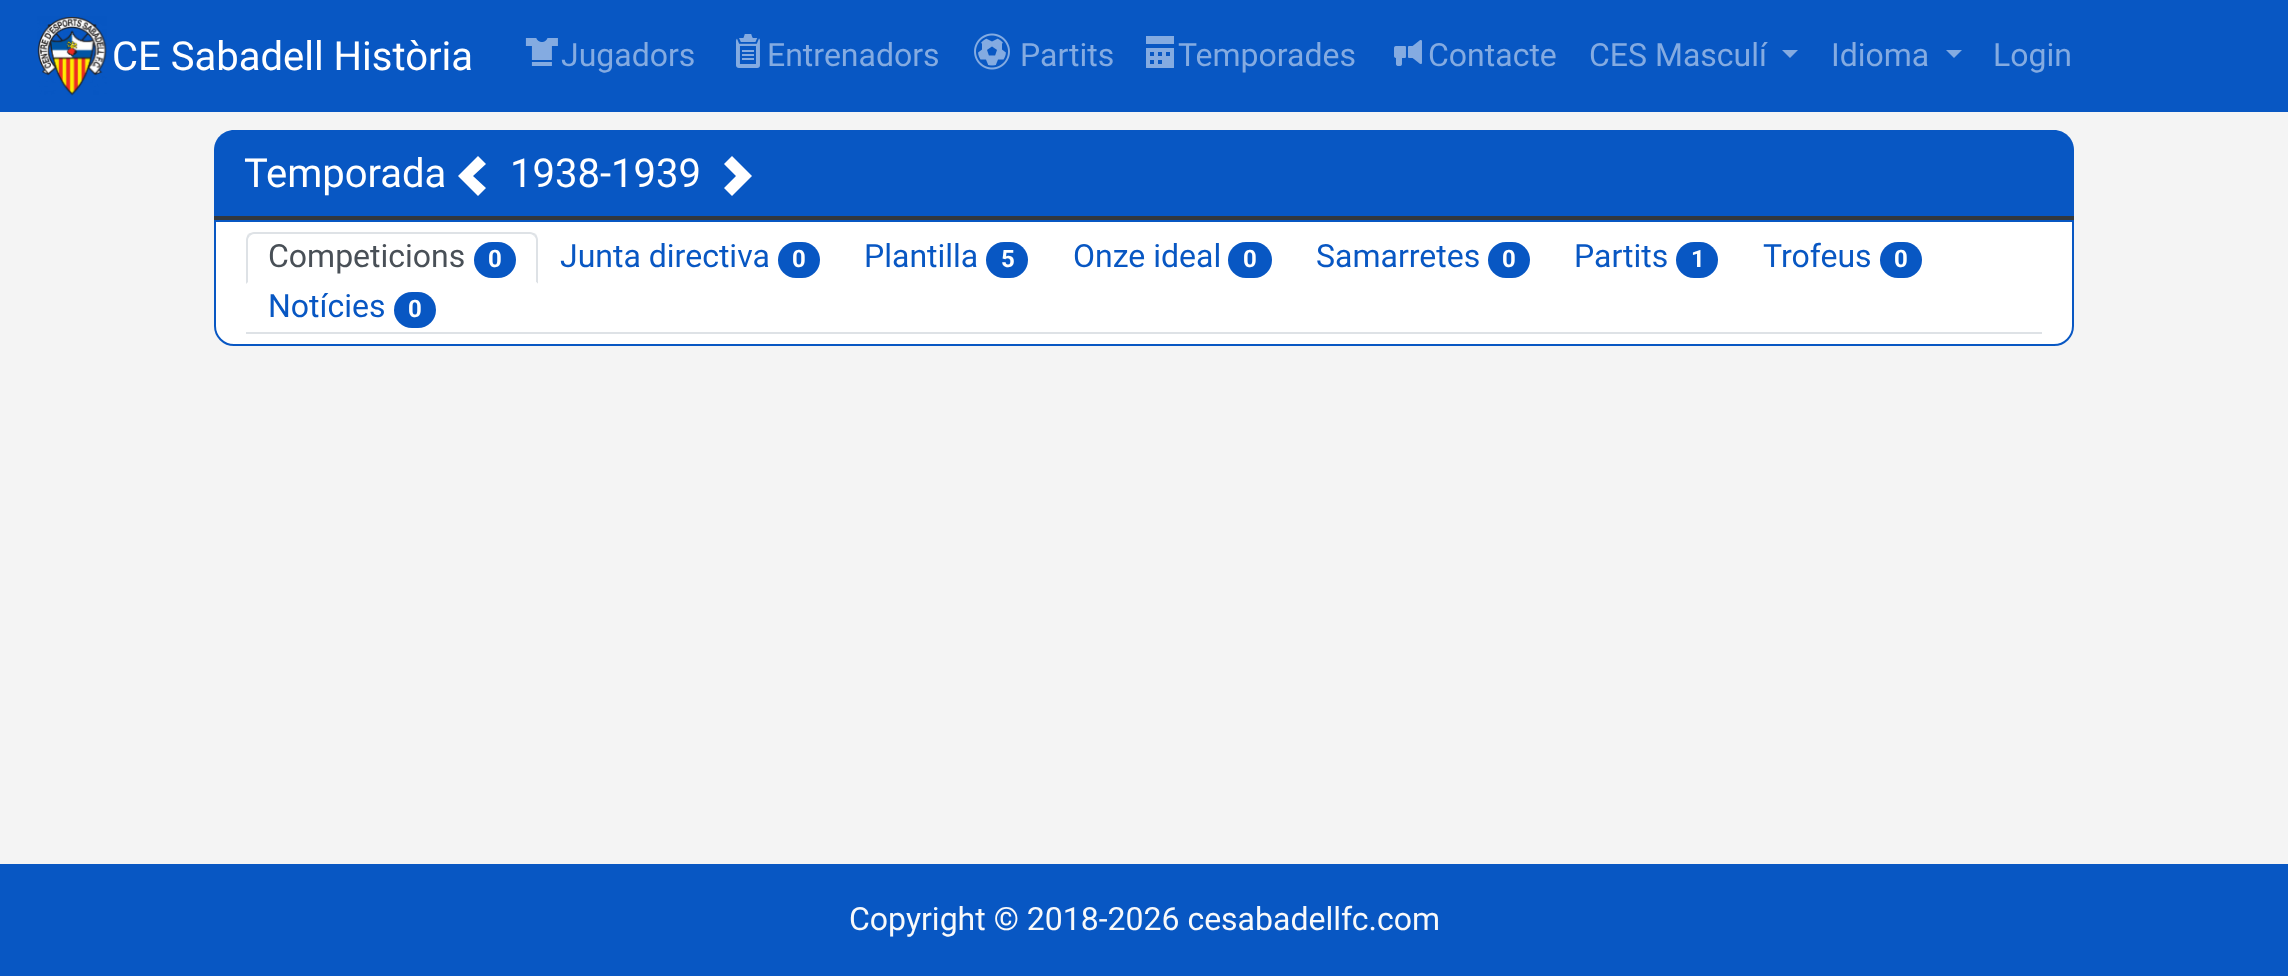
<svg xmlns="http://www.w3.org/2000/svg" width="2288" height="976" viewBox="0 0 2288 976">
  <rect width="100%" height="100%" fill="#f4f4f4"/>
  <path d="M0 0h2288v112H0z" fill="#0857c3"/>
  <image x="37" y="16" width="70" height="80" href="img/1.png"/>
  <image x="525" y="38" width="33" height="28" href="img/2.png"/>
  <image x="736" y="34" width="24" height="34" href="img/3.png"/>
  <image x="974" y="33" width="36" height="37" href="img/4.png"/>
  <image x="1146" y="36" width="28" height="32" href="img/5.png"/>
  <image x="1394" y="40" width="28" height="26" href="img/6.png"/>
  <path d="M1782 50H1798L1790 58Z" fill="#84abe1"/>
  <path d="M1946 50H1962L1954 58Z" fill="#84abe1"/>
  <path d="M234 130H2054C2065 130 2074 139 2074 150V220H214V150C214 139 223 130 234 130Z" fill="#0857c3"/>
  <path d="M214 216h1860v4H214z" fill="#32383e"/>
  <path d="M478 156L486 164L473 176L486 188L478 196L458 176Z" fill="#fff"/>
  <path d="M732 156L752 176L732 196L724 188L736 176L724 164Z" fill="#fff"/>
  <path d="M215 221H2073V326C2073 336.5 2064.5 345 2054 345H234C223.5 345 215 336.5 215 326Z" fill="#fff" stroke="#0857c3" stroke-width="2"/>
  <path d="M246 332h1796v2H246z" fill="#dee2e6"/>
  <path d="M254 232C252 232 250 233 248 234L250 236C251 235 252 234 254 234H530C532 234 533 235 534 236L536 234C534 233 532 232 530 232Z" fill="#dee2e6"/>
  <path d="M538 284V240C538 238 537 236 536 234L534 236C535 237 536 238 536 240V282Z" fill="#dee2e6"/>
  <path d="M538 284L536 282H248L246 284Z" fill="#fff"/>
  <path d="M246 284L248 282V240C248 238 249 237 250 236L248 234C247 236 246 238 246 240Z" fill="#dee2e6"/>
  <rect x="474" y="242" width="42" height="36" rx="18" fill="#0857c3"/>
  <rect x="778" y="242" width="42" height="36" rx="18" fill="#0857c3"/>
  <rect x="986" y="242" width="42" height="36" rx="18" fill="#0857c3"/>
  <rect x="1228" y="242" width="44" height="36" rx="18" fill="#0857c3"/>
  <rect x="1488" y="242" width="42" height="36" rx="18" fill="#0857c3"/>
  <rect x="1676" y="242" width="42" height="36" rx="18" fill="#0857c3"/>
  <rect x="1880" y="242" width="42" height="36" rx="18" fill="#0857c3"/>
  <rect x="394" y="292" width="42" height="36" rx="18" fill="#0857c3"/>
  <path d="M0 864h2288v112H0z" fill="#0857c3"/>
  <text x="112" y="70" font-family="Roboto" font-size="40" fill="#fff">CE Sabadell Història</text>
  <g font-family="Roboto" font-size="32" fill="#84abe1">
    <text x="561" y="66">Jugadors</text>
    <text x="767" y="66">Entrenadors</text>
    <text x="1020" y="66">Partits</text>
    <text x="1178" y="66">Temporades</text>
    <text x="1428" y="66">Contacte</text>
    <text x="1589" y="66">CES Masculí</text>
    <text x="1831" y="66">Idioma</text>
    <text x="1993" y="66">Login</text>
  </g>
  <g font-family="Roboto" font-size="40" fill="#fff">
    <text x="244" y="187">Temporada</text>
    <text x="510" y="187">1938-1939</text>
  </g>
  <text x="268" y="267" font-family="Roboto" font-size="32" fill="#495057">Competicions</text>
  <text x="488" y="267" font-family="Roboto" font-size="24" font-weight="bold" fill="#fff">0</text>
  <text x="560" y="267" font-family="Roboto" font-size="32" fill="#0857c3">Junta directiva</text>
  <text x="792" y="267" font-family="Roboto" font-size="24" font-weight="bold" fill="#fff">0</text>
  <text x="864" y="267" font-family="Roboto" font-size="32" fill="#0857c3">Plantilla</text>
  <text x="1001" y="267" font-family="Roboto" font-size="24" font-weight="bold" fill="#fff">5</text>
  <text x="1073" y="267" font-family="Roboto" font-size="32" fill="#0857c3">Onze ideal</text>
  <text x="1243" y="267" font-family="Roboto" font-size="24" font-weight="bold" fill="#fff">0</text>
  <text x="1316" y="267" font-family="Roboto" font-size="32" fill="#0857c3">Samarretes</text>
  <text x="1502" y="267" font-family="Roboto" font-size="24" font-weight="bold" fill="#fff">0</text>
  <text x="1574" y="267" font-family="Roboto" font-size="32" fill="#0857c3">Partits</text>
  <text x="1691" y="267" font-family="Roboto" font-size="24" font-weight="bold" fill="#fff">1</text>
  <text x="1763" y="267" font-family="Roboto" font-size="32" fill="#0857c3">Trofeus</text>
  <text x="1894" y="267" font-family="Roboto" font-size="24" font-weight="bold" fill="#fff">0</text>
  <text x="268" y="317" font-family="Roboto" font-size="32" fill="#0857c3">Notícies</text>
  <text x="408" y="317" font-family="Roboto" font-size="24" font-weight="bold" fill="#fff">0</text>
  <text x="849" y="930" font-family="Roboto" font-size="32" fill="#f8f9fa">Copyright © 2018-2026 cesabadellfc.com</text>
</svg>
